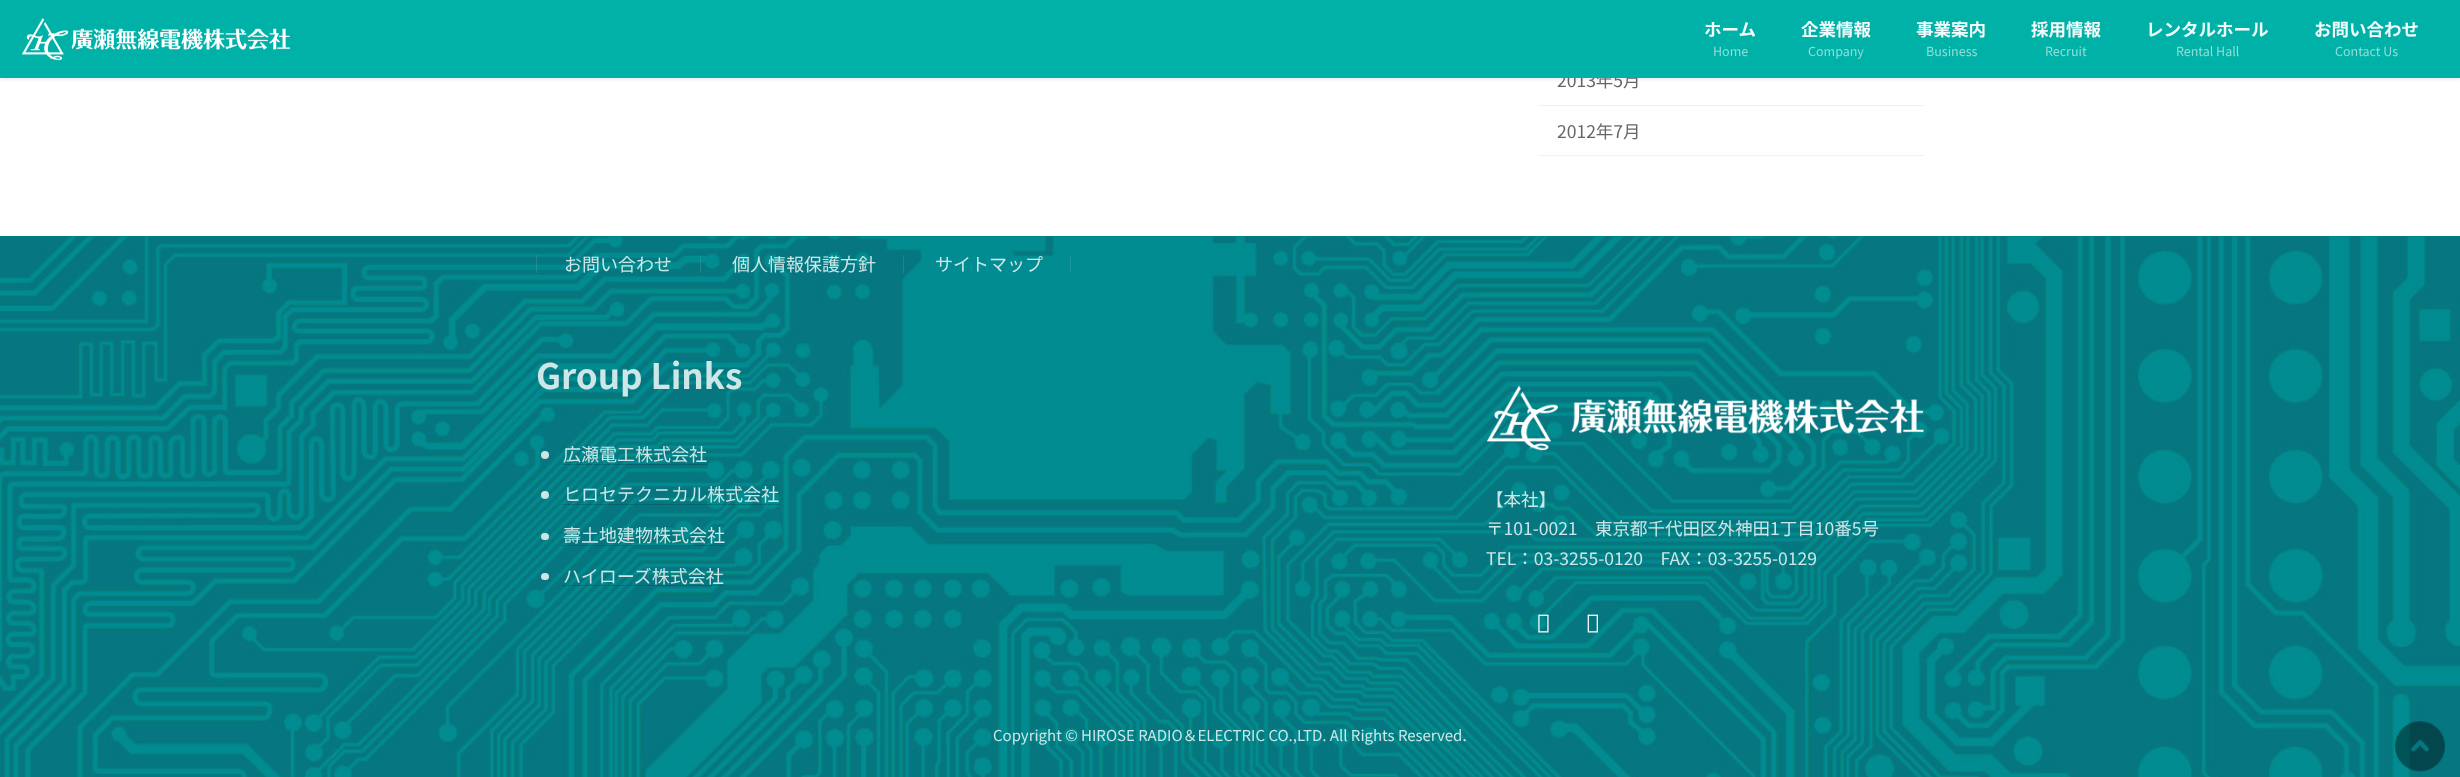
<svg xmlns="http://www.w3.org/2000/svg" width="2460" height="777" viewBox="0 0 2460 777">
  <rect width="100%" height="100%" fill="#fff"/>
  <path d="M0 1h2460v78H0z" fill="#0000001a" filter="blur(2px)"/>
  <path d="M1539 105h385v1H1539z" fill="#f0f0f0"/>
  <path d="M1539 155h385v1H1539z" fill="#f0f0f0"/>
  <path d="M0 236h2460v1H0z" fill="#008089"/>
  <image x="0" y="236" width="2460" height="541" href="img/2.png"/>
  <path d="M700 255h1v18H700z" fill="#ffffff1a"/>
  <path d="M536 255h1v18H536z" fill="#ffffff1a"/>
  <path d="M903 255h1v18H903z" fill="#ffffff1a"/>
  <path d="M1070 255h1v18H1070z" fill="#1a989c"/>
  <circle cx="545" cy="455" r="4" fill="#ffffffcc"/>
  <path d="M563 464.5H707" fill="none" stroke="#0000004d" stroke-width="1.2" stroke-dasharray="1.25 1.25"/>
  <circle cx="545" cy="495" r="4" fill="#ffffffcc"/>
  <path d="M563 504.5H779" fill="none" stroke="#0000004d" stroke-width="1.2" stroke-dasharray="1.25 1.25"/>
  <rect x="541" y="533" width="8" height="7" rx="3.5" fill="#ffffffcc"/>
  <path d="M563 545.5H725" fill="none" stroke="#0000004d" stroke-width="1.2" stroke-dasharray="1.25 1.25"/>
  <rect x="541" y="573" width="8" height="7" rx="3.5" fill="#ffffffcc"/>
  <path d="M563 585.5H724" fill="none" stroke="#0000004d" stroke-width="1.2" stroke-dasharray="1.25 1.25"/>
  <image x="1486" y="385" width="438" height="66" href="img/3.png"/>
  <image x="1538" y="614" width="11" height="19" href="img/4.png"/>
  <image x="1587" y="614" width="11" height="19" href="img/5.png"/>
  <image x="2395" y="721" width="50" height="51" href="img/6.png"/>
  <text x="1557" y="87" font-family="Noto Sans JP" font-size="17.5" fill="#666">2013年5月</text>
  <path d="M0 0h2460v78H0z" fill="#00b1a7"/>
  <image x="22" y="18" width="268" height="43" href="img/1.png"/>
  <text x="2335" y="56" font-family="Noto Sans JP" font-size="12.5" fill="#91ded9">Contact Us</text>
  <text x="2314" y="36" font-family="Noto Sans JP" font-size="17.5" font-weight="bold" fill="#f2fbfb">お問い合わせ</text>
  <text x="2176" y="56" font-family="Noto Sans JP" font-size="12.5" fill="#91ded9">Rental Hall</text>
  <text x="2146" y="36" font-family="Noto Sans JP" font-size="17.5" font-weight="bold" fill="#f2fbfb">レンタルホール</text>
  <text x="2045" y="56" font-family="Noto Sans JP" font-size="12.5" fill="#91ded9">Recruit</text>
  <text x="2031" y="36" font-family="Noto Sans JP" font-size="17.5" font-weight="bold" fill="#f2fbfb">採用情報</text>
  <text x="1926" y="56" font-family="Noto Sans JP" font-size="12.5" fill="#91ded9">Business</text>
  <text x="1916" y="36" font-family="Noto Sans JP" font-size="17.5" font-weight="bold" fill="#f2fbfb">事業案内</text>
  <text x="1808" y="56" font-family="Noto Sans JP" font-size="12.5" fill="#91ded9">Company</text>
  <text x="1801" y="36" font-family="Noto Sans JP" font-size="17.5" font-weight="bold" fill="#f2fbfb">企業情報</text>
  <text x="1713" y="56" font-family="Noto Sans JP" font-size="12.5" fill="#91ded9">Home</text>
  <text x="1704" y="36" font-family="Noto Sans JP" font-size="17.5" font-weight="bold" fill="#f2fbfb">ホーム</text>
  <text x="1557" y="138" font-family="Noto Sans JP" font-size="17.5" fill="#666">2012年7月</text>
  <g font-family="Noto Sans JP" font-size="18" fill="#cde6e7">
    <text x="564" y="271">お問い合わせ</text>
    <text x="732" y="271">個人情報保護方針</text>
    <text x="935" y="271">サイトマップ</text>
  </g>
  <text x="536" y="389" font-family="Noto Sans JP" font-size="35" font-weight="bold" fill="#cde6e7">Group Links</text>
  <g font-family="Noto Sans JP" font-size="18" fill="#cde6e7">
    <text x="563" y="461">広瀬電工株式会社</text>
    <text x="563" y="501">ヒロセテクニカル株式会社</text>
    <text x="563" y="542">壽土地建物株式会社</text>
    <text x="563" y="583">ハイローズ株式会社</text>
  </g>
  <g font-family="Noto Sans JP" font-size="17.5" fill="#cde6e7">
    <text x="1486" y="506">【本社】</text>
    <text x="1486" y="535">〒101-0021　東京都千代田区外神田1丁目10番5号</text>
    <text x="1486" y="565">TEL：03-3255-0120　FAX：03-3255-0129</text>
  </g>
  <text x="993" y="741" font-family="Noto Sans JP" font-size="15" fill="#cde6e7">Copyright © HIROSE RADIO＆ELECTRIC CO.,LTD. All Rights Reserved.</text>
</svg>
